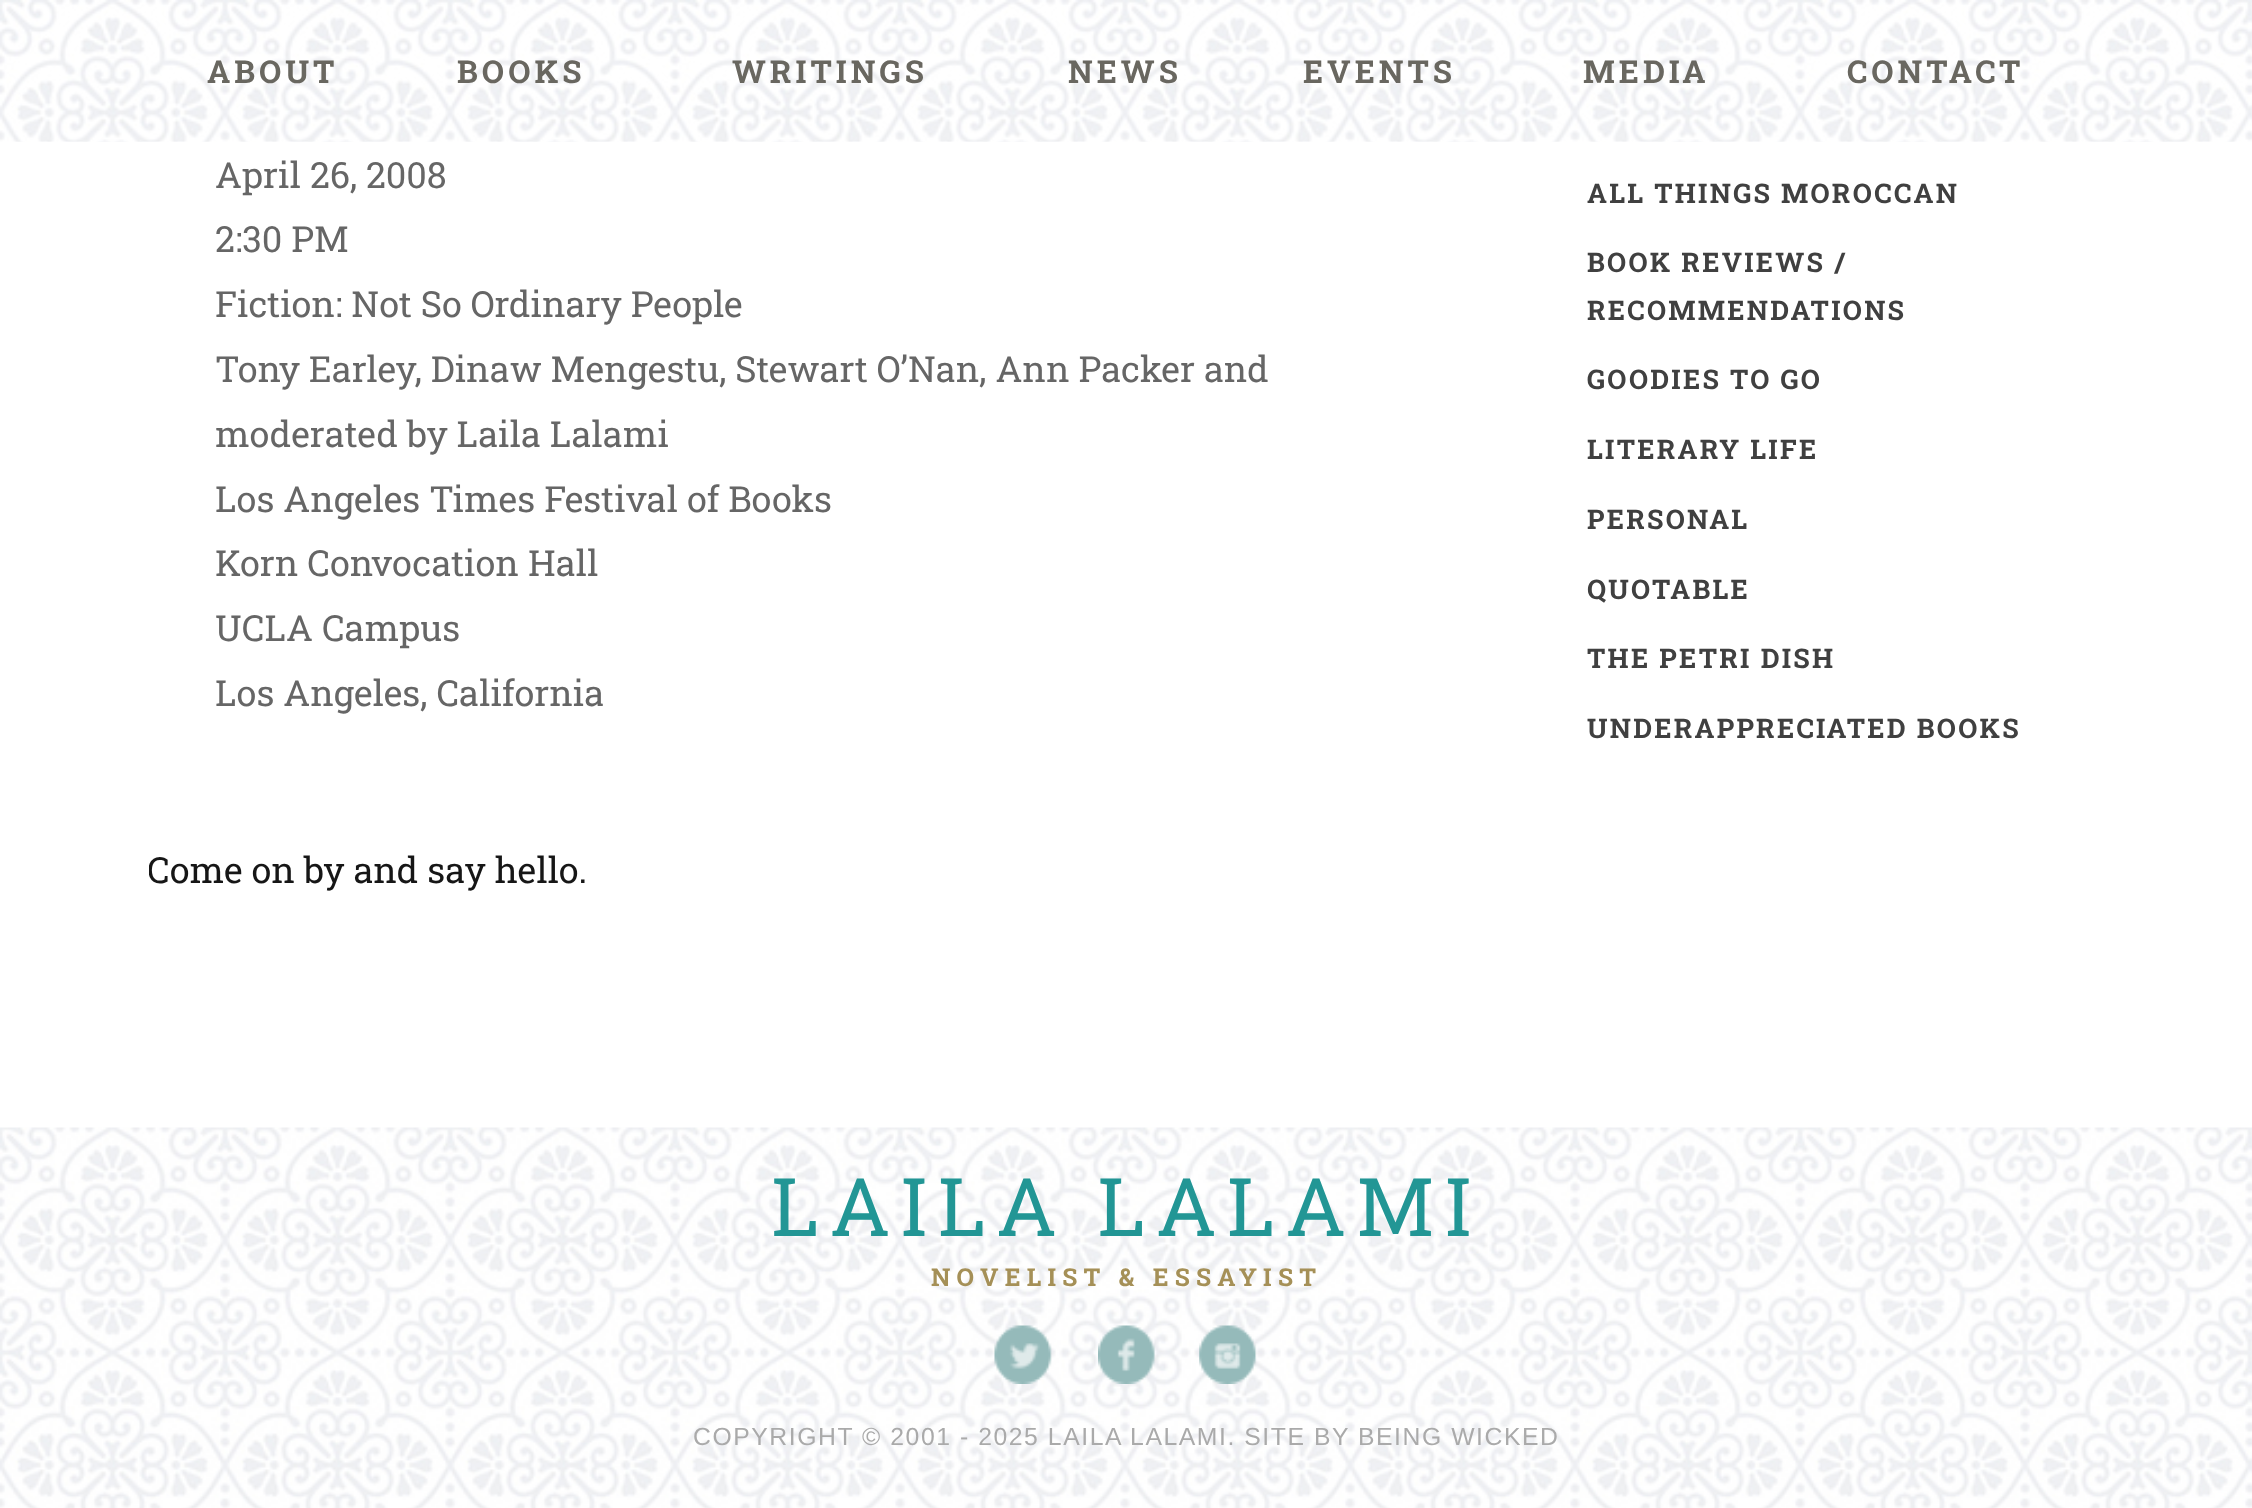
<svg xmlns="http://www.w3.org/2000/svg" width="2252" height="1508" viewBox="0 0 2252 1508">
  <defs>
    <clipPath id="clip1"><path d="M149 0h1417v1127H149z"/></clipPath>
  </defs>
  <rect width="100%" height="100%" fill="#fff"/>
  <image x="0" y="0" width="2252" height="142" href="img/1.png"/>
  <image x="0" y="1127" width="2252" height="381" href="img/2.png"/>
  <image x="994" y="1325" width="58" height="59" href="img/3.png"/>
  <image x="1098" y="1325" width="57" height="59" href="img/4.png"/>
  <image x="1199" y="1325" width="58" height="59" href="img/5.png"/>
  <g font-family="Roboto Slab" font-size="31.5" font-weight="bold" letter-spacing="4" fill="#696760">
    <text x="207" y="83">ABOUT</text>
    <text x="457" y="83">BOOKS</text>
    <text x="732" y="83">WRITINGS</text>
    <text x="1068" y="83">NEWS</text>
    <text x="1303" y="83">EVENTS</text>
    <text x="1583" y="83">MEDIA</text>
    <text x="1847" y="83">CONTACT</text>
  </g>
  <g font-family="Roboto Slab" font-size="36" fill="#666">
    <text x="215" y="188">April 26, 2008</text>
    <text x="215" y="252">2:30 PM</text>
    <text x="215" y="317">Fiction: Not So Ordinary People</text>
    <text x="215" y="382">Tony Earley, Dinaw Mengestu, Stewart O’Nan, Ann Packer and</text>
    <text x="215" y="447">moderated by Laila Lalami</text>
    <text x="215" y="512">Los Angeles Times Festival of Books</text>
    <text x="215" y="576">Korn Convocation Hall</text>
    <text x="215" y="641">UCLA Campus</text>
    <text x="215" y="706">Los Angeles, California</text>
  </g>
  <g clip-path="url(#clip1)">
    <text x="147" y="883" font-family="Roboto Slab" font-size="36" fill="#161616">Come on by and say hello.</text>
  </g>
  <g font-family="Roboto Slab" font-size="27" font-weight="bold" letter-spacing="2.25" fill="#404040">
    <text x="1587" y="203">ALL THINGS MOROCCAN</text>
    <text x="1587" y="272">BOOK REVIEWS /</text>
    <text x="1587" y="320">RECOMMENDATIONS</text>
    <text x="1587" y="389">GOODIES TO GO</text>
    <text x="1587" y="459">LITERARY LIFE</text>
    <text x="1587" y="529">PERSONAL</text>
    <text x="1587" y="599">QUOTABLE</text>
    <text x="1587" y="668">THE PETRI DISH</text>
    <text x="1587" y="738">UNDERAPPRECIATED BOOKS</text>
  </g>
  <text x="771" y="1236" font-family="Roboto Slab" font-size="81" letter-spacing="10.1" fill="#229695">LAILA LALAMI</text>
  <text x="931" y="1286" font-family="Roboto Slab" font-size="24.75" font-weight="bold" letter-spacing="6.2" fill="#a59057">NOVELIST &amp; ESSAYIST</text>
  <g font-family="Liberation Sans" font-size="24.75" letter-spacing="1.55" fill="#aaa">
    <text x="693" y="1445">COPYRIGHT © 2001 - 2025 LAILA LALAMI. SITE BY</text>
    <text x="1358" y="1445">BEING WICKED</text>
  </g>
</svg>
